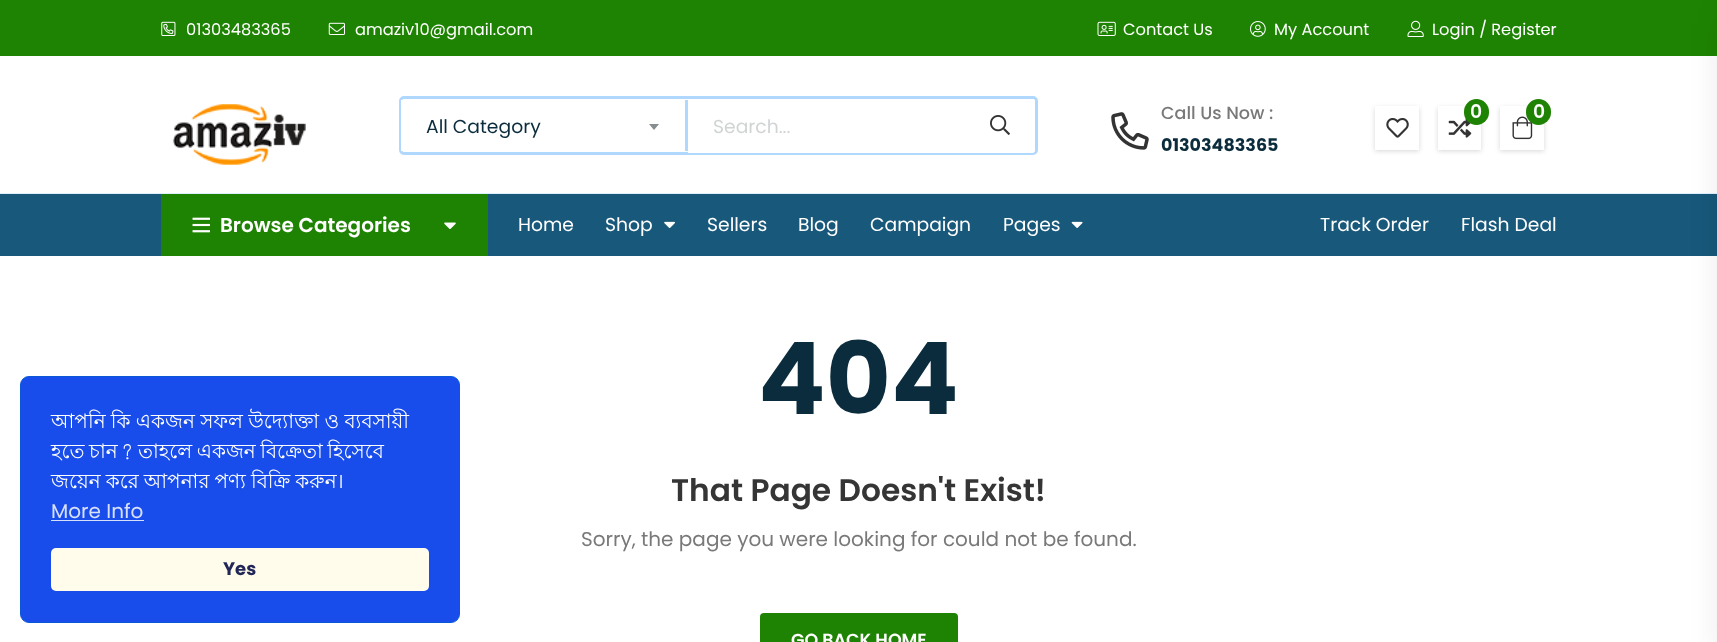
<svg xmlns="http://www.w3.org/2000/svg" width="1717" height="642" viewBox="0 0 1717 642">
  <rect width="100%" height="100%" fill="#fff"/>
  <path d="M0 0h1717v56H0z" fill="#1e8302"/>
  <image x="161" y="21" width="15" height="15" href="img/1.png"/>
  <image x="328" y="22" width="17" height="13" href="img/2.png"/>
  <image x="1097" y="21" width="19" height="15" href="img/3.png"/>
  <image x="1250" y="21" width="16" height="16" href="img/4.png"/>
  <image x="1407" y="20" width="17" height="17" href="img/5.png"/>
  <path d="M0 193h1717v1H0z" fill="#def0ff"/>
  <image x="172" y="104" width="134" height="61" href="img/6.png"/>
  <rect x="400.5" y="97.5" width="636" height="56" rx="3.5" fill="none" stroke="#b0d8ff" stroke-width="3"/>
  <path d="M401 100h2v51H401z" fill="#fff"/>
  <path d="M685 100h3v51H685z" fill="#b0d8ff"/>
  <path d="M649 124H659L654 130Z" fill="#858d91"/>
  <path d="M688 99H1032.5C1034 99 1035 100 1035 101.5V150.5C1035 152 1034 153 1032.5 153H688Z" fill="#fff"/>
  <image x="990" y="115" width="20" height="20" href="img/7.png"/>
  <image x="1111" y="112" width="38" height="38" href="img/8.png"/>
  <path d="M1375 108h44v43H1375z" fill="#00000029" filter="blur(2.5px)"/>
  <path d="M1375 106h44v44H1375z" fill="#fff"/>
  <image x="1386" y="118" width="23" height="20" href="img/9.png"/>
  <path d="M1438 108h43v43H1438z" fill="#00000029" filter="blur(2.5px)"/>
  <path d="M1438 106h43v44H1438z" fill="#fff"/>
  <image x="1448" y="118" width="24" height="20" href="img/10.png"/>
  <rect x="1464" y="99" width="25" height="26" rx="12.5" fill="#1e8302"/>
  <path d="M1500 108h44v43H1500z" fill="#00000029" filter="blur(2.5px)"/>
  <path d="M1500 106h44v44H1500z" fill="#fff"/>
  <image x="1512" y="116" width="21" height="24" href="img/11.png"/>
  <rect x="1526" y="99" width="25" height="26" rx="12.5" fill="#1e8302"/>
  <path d="M0 194h1717v62H0z" fill="#18587a"/>
  <path d="M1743 24h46v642H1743z" fill="#0000004d" filter="blur(24px)"/>
  <path d="M161 194h327v62H161z" fill="#1e8302"/>
  <image x="192" y="217" width="18" height="16" href="img/12.png"/>
  <image x="444" y="222" width="12" height="7" href="img/13.png"/>
  <image x="664" y="221" width="11" height="7" href="img/14.png"/>
  <image x="1071" y="221" width="12" height="7" href="img/15.png"/>
  <rect x="20.5" y="376.5" width="439" height="246" rx="8.5" fill="#184dec" stroke="#0a58d6"/>
  <path d="M51 520h93v1H51z" fill="#d8e0f8"/>
  <rect x="51" y="548" width="378" height="43" rx="5" fill="#fffceb"/>
  <rect x="760" y="613" width="198" height="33" rx="4" fill="#1e8302"/>
  <g font-family="Poppins" font-size="16.25" fill="#fff">
    <text x="186" y="35">01303483365</text>
    <text x="355" y="35">amaziv10@gmail.com</text>
    <text x="1123" y="35">Contact Us</text>
    <text x="1274" y="35">My Account</text>
    <text x="1432" y="35">Login / Register</text>
  </g>
  <text x="426" y="133" font-family="Poppins" font-size="18.75" fill="#0b2c3d">All Category</text>
  <text x="713" y="133" font-family="Poppins" font-size="18.75" fill="#d1d4d5">Search...</text>
  <text x="1161" y="119" font-family="Poppins" font-size="17.5" font-weight="500" fill="#797979">Call Us Now :</text>
  <text x="1161" y="151" font-family="Poppins" font-size="17.5" font-weight="bold" fill="#0b2c3d">01303483365</text>
  <g font-family="Poppins" font-size="18.75" font-weight="600" fill="#fff">
    <text x="1470" y="118">0</text>
    <text x="1533" y="118">0</text>
  </g>
  <text x="220" y="232" font-family="Poppins" font-size="20" font-weight="600" fill="#fff">Browse Categories</text>
  <g font-family="Poppins" font-size="18.75" fill="#fff">
    <text x="518" y="231">Home</text>
    <text x="605" y="231">Shop</text>
    <text x="707" y="231">Sellers</text>
    <text x="798" y="231">Blog</text>
    <text x="870" y="231">Campaign</text>
    <text x="1003" y="231">Pages</text>
    <text x="1320" y="231">Track Order</text>
    <text x="1461" y="231">Flash Deal</text>
  </g>
  <g font-family="Lohit Bengali" font-size="20" fill="#fff">
    <text x="51" y="428" word-spacing="-0.25">আপনি কি একজন সফল উদ্যোক্তা ও ব্যবসায়ী</text>
    <text x="51" y="458" word-spacing="-1">হতে চান? তাহলে একজন বিক্রেতা হিসেবে</text>
    <text x="51" y="488" word-spacing="-0.5">জয়েন করে আপনার পণ্য বিক্রি করুন।</text>
  </g>
  <text x="51" y="518" font-family="Poppins" font-size="20" fill="#d8e0f8">More Info</text>
  <text x="223" y="575" font-family="Poppins" font-size="18" font-weight="bold" fill="#222758">Yes</text>
  <text x="758" y="414" font-family="Poppins" font-size="100" font-weight="bold" fill="#0b2c3d">404</text>
  <text x="671" y="501" font-family="Poppins" font-size="31.25" font-weight="600" fill="#353535">That Page Doesn't Exist!</text>
  <text x="581" y="546" font-family="Poppins" font-size="20" fill="#797979">Sorry, the page you were looking for could not be found.</text>
  <text x="791" y="646" font-family="Poppins" font-size="17.5" font-weight="600" fill="#fff">GO BACK HOME</text>
</svg>
